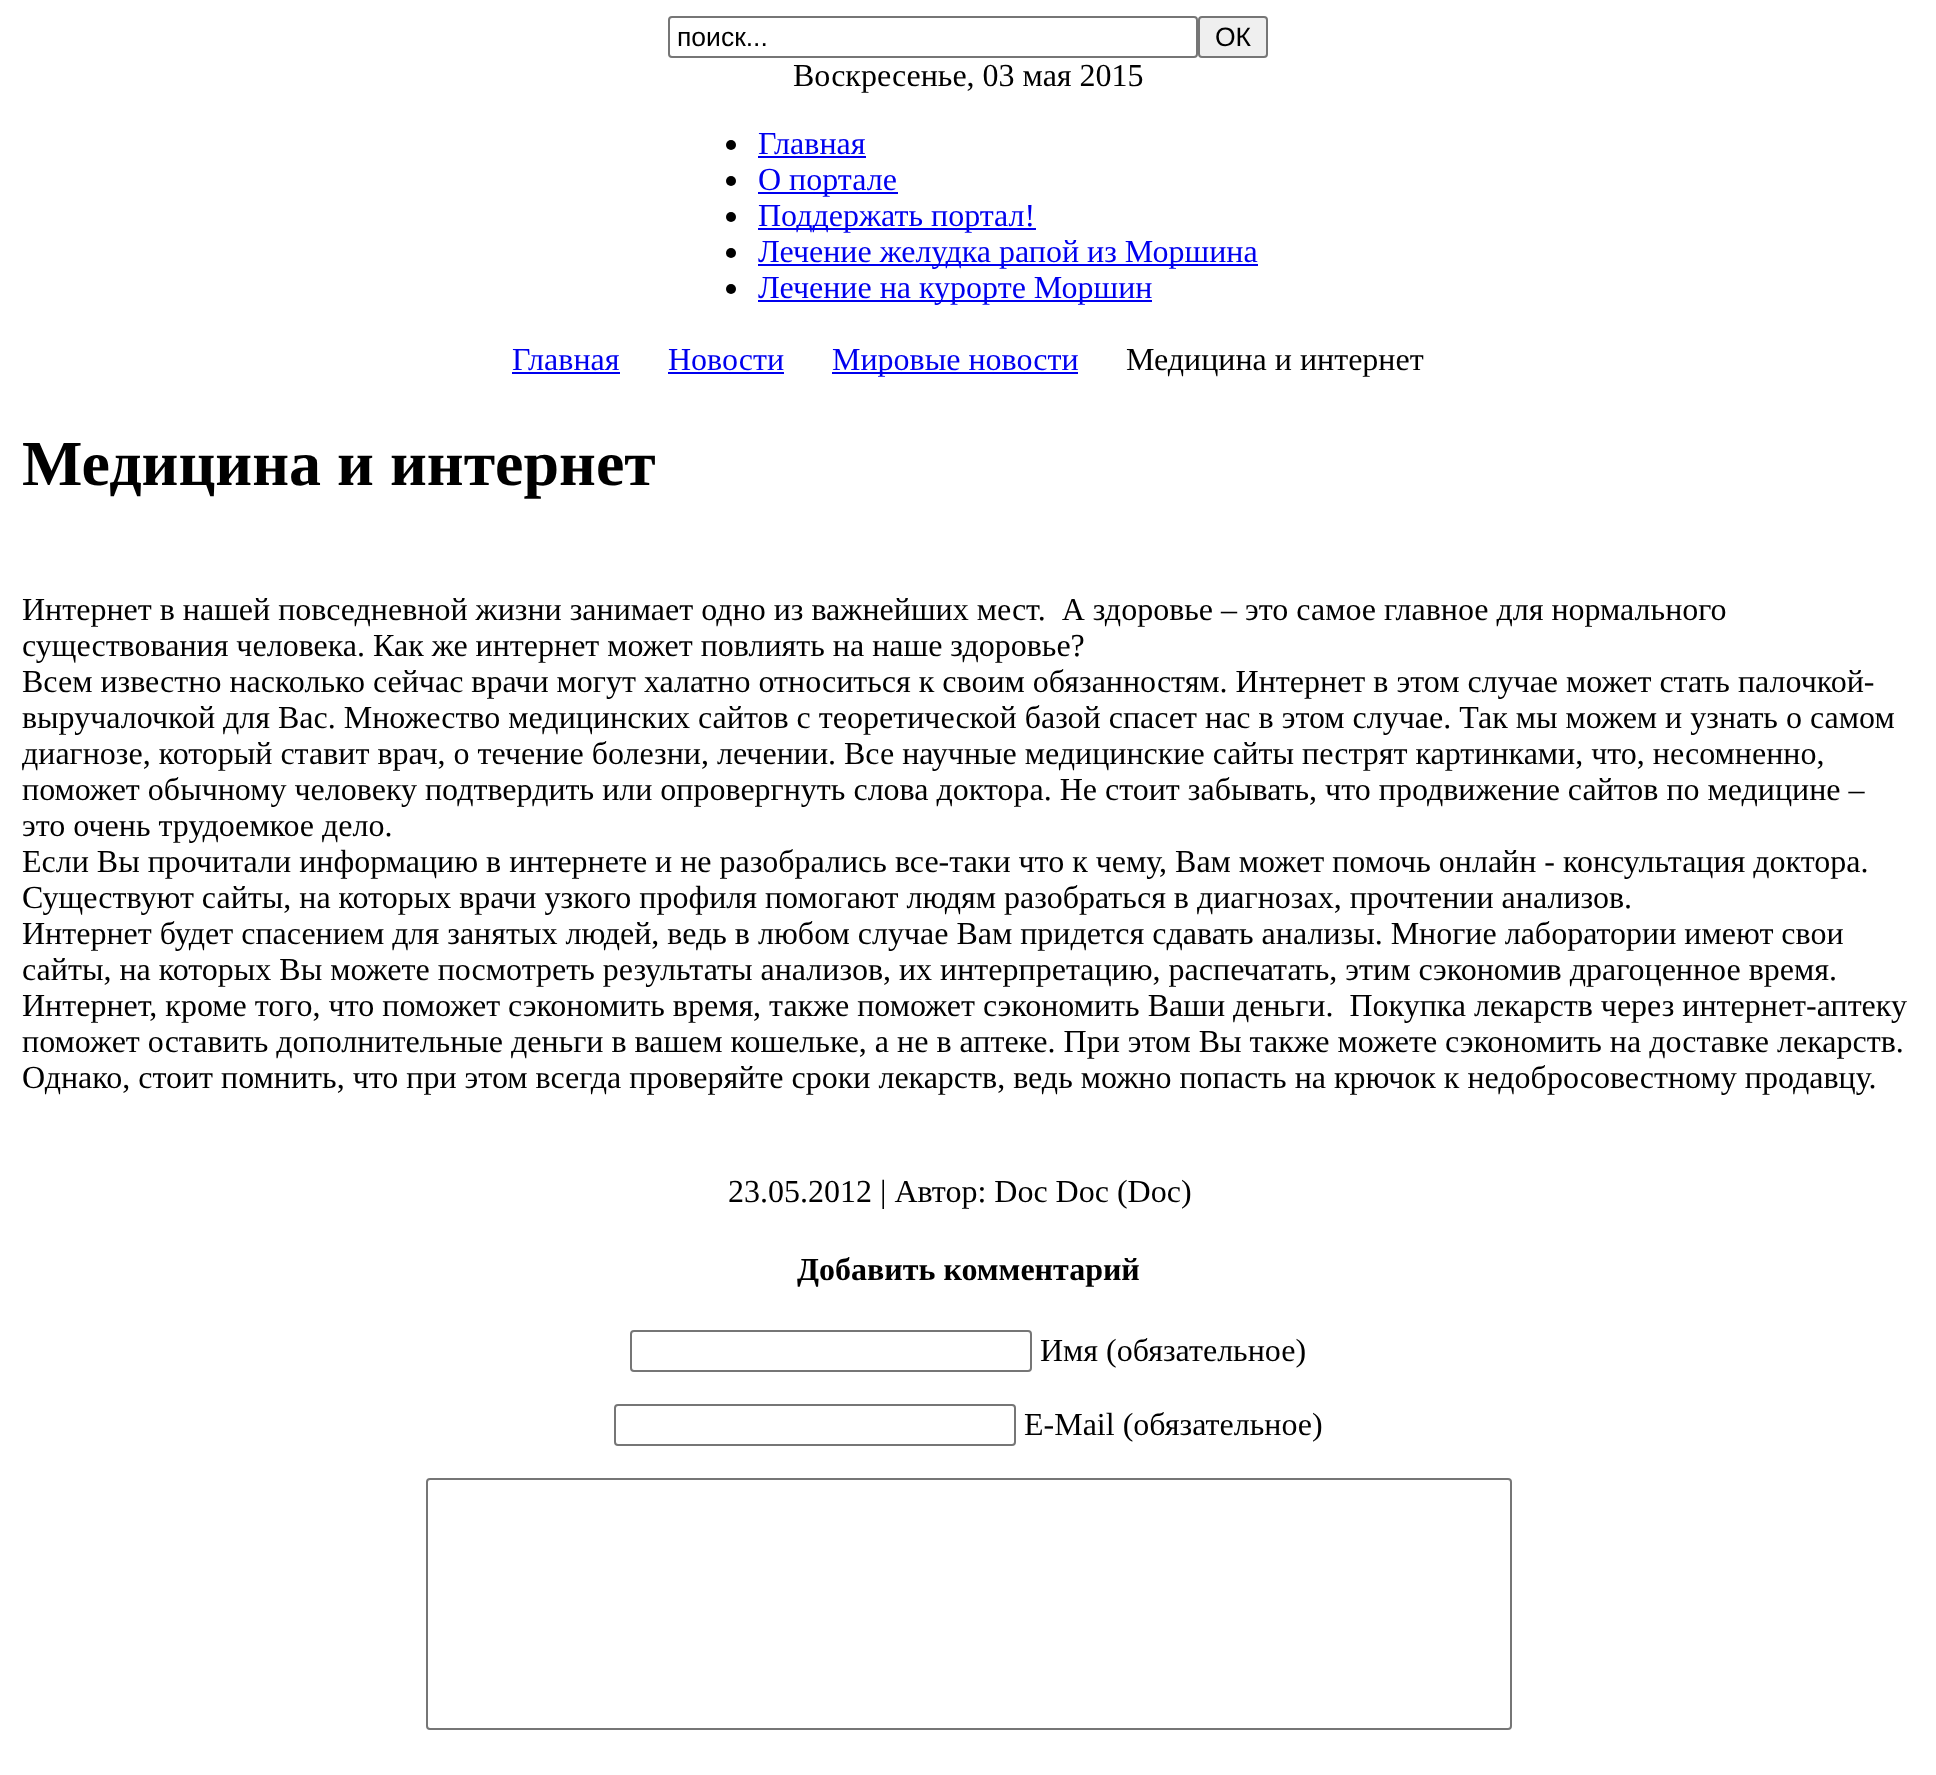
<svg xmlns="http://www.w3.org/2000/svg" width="1936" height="1775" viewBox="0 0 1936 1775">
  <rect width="100%" height="100%" fill="#fff"/>
  <rect x="669" y="17" width="528" height="40" rx="3" fill="none" stroke="#767676" stroke-width="2"/>
  <rect x="1199" y="17" width="68" height="40" rx="3" fill="#efefef" stroke="#767676" stroke-width="2"/>
  <circle cx="731" cy="145" r="5" fill="#000"/>
  <path d="M758 156h108v2H758z" fill="#00e"/>
  <circle cx="731" cy="181" r="5" fill="#000"/>
  <path d="M758 192h140v2H758z" fill="#00e"/>
  <circle cx="731" cy="217" r="5" fill="#000"/>
  <path d="M758 228h278v2H758z" fill="#00e"/>
  <circle cx="731" cy="253" r="5" fill="#000"/>
  <path d="M758 264h500v2H758z" fill="#00e"/>
  <circle cx="731" cy="289" r="5" fill="#000"/>
  <path d="M758 300h394v2H758z" fill="#00e"/>
  <path d="M512 372h108v2H512z" fill="#00e"/>
  <path d="M668 372h116v2H668z" fill="#00e"/>
  <path d="M832 372h246v2H832z" fill="#00e"/>
  <rect x="631" y="1331" width="400" height="40" rx="3" fill="none" stroke="#767676" stroke-width="2"/>
  <rect x="615" y="1405" width="400" height="40" rx="3" fill="none" stroke="#767676" stroke-width="2"/>
  <rect x="427" y="1479" width="1084" height="250" rx="3" fill="none" stroke="#767676" stroke-width="2"/>
  <g font-family="Liberation Sans" font-size="26.5" fill="#000">
    <text x="677" y="46">поиск...</text>
    <text x="1215" y="46">ОК</text>
  </g>
  <text x="793" y="86" font-family="Liberation Serif" font-size="32" fill="#000">Воскресенье, 03 мая 2015</text>
  <g font-family="Liberation Serif" font-size="32" fill="#00e">
    <text x="758" y="154">Главная</text>
    <text x="758" y="190">О портале</text>
    <text x="758" y="226">Поддержать портал!</text>
    <text x="758" y="262">Лечение желудка рапой из Моршина</text>
    <text x="758" y="298">Лечение на курорте Моршин</text>
    <text x="512" y="370">Главная</text>
    <text x="668" y="370">Новости</text>
    <text x="832" y="370">Мировые новости</text>
  </g>
  <text x="1126" y="370" font-family="Liberation Serif" font-size="32" fill="#000">Медицина и интернет</text>
  <text x="22" y="485" font-family="Liberation Serif" font-size="64" font-weight="bold" fill="#000">Медицина и интернет</text>
  <g font-family="Liberation Serif" font-size="32" fill="#000">
    <text x="22" y="620" xml:space="preserve">Интернет в нашей повседневной жизни занимает одно из важнейших мест.  А здоровье – это самое главное для нормального</text>
    <text x="22" y="656">существования человека. Как же интернет может повлиять на наше здоровье?</text>
    <text x="22" y="692">Всем известно насколько сейчас врачи могут халатно относиться к своим обязанностям. Интернет в этом случае может стать палочкой-</text>
    <text x="22" y="728">выручалочкой для Вас. Множество медицинских сайтов с теоретической базой спасет нас в этом случае. Так мы можем и узнать о самом</text>
    <text x="22" y="764">диагнозе, который ставит врач, о течение болезни, лечении. Все научные медицинские сайты пестрят картинками, что, несомненно,</text>
    <text x="22" y="800">поможет обычному человеку подтвердить или опровергнуть слова доктора. Не стоит забывать, что продвижение сайтов по медицине –</text>
    <text x="22" y="836">это очень трудоемкое дело.</text>
    <text x="22" y="872">Если Вы прочитали информацию в интернете и не разобрались все-таки что к чему, Вам может помочь онлайн - консультация доктора.</text>
    <text x="22" y="908">Существуют сайты, на которых врачи узкого профиля помогают людям разобраться в диагнозах, прочтении анализов.</text>
    <text x="22" y="944">Интернет будет спасением для занятых людей, ведь в любом случае Вам придется сдавать анализы. Многие лаборатории имеют свои</text>
    <text x="22" y="980">сайты, на которых Вы можете посмотреть результаты анализов, их интерпретацию, распечатать, этим сэкономив драгоценное время.</text>
    <text x="22" y="1016" xml:space="preserve">Интернет, кроме того, что поможет сэкономить время, также поможет сэкономить Ваши деньги.  Покупка лекарств через интернет-аптеку</text>
    <text x="22" y="1052">поможет оставить дополнительные деньги в вашем кошельке, а не в аптеке. При этом Вы также можете сэкономить на доставке лекарств.</text>
    <text x="22" y="1088">Однако, стоит помнить, что при этом всегда проверяйте сроки лекарств, ведь можно попасть на крючок к недобросовестному продавцу.</text>
    <text x="728" y="1202">23.05.2012 | Автор: Doc Doc (Doc)</text>
  </g>
  <text x="797" y="1280" font-family="Liberation Serif" font-size="32" font-weight="bold" fill="#000">Добавить комментарий</text>
  <g font-family="Liberation Serif" font-size="32" fill="#000">
    <text x="1040" y="1361">Имя (обязательное)</text>
    <text x="1024" y="1435">E-Mail (обязательное)</text>
  </g>
</svg>
